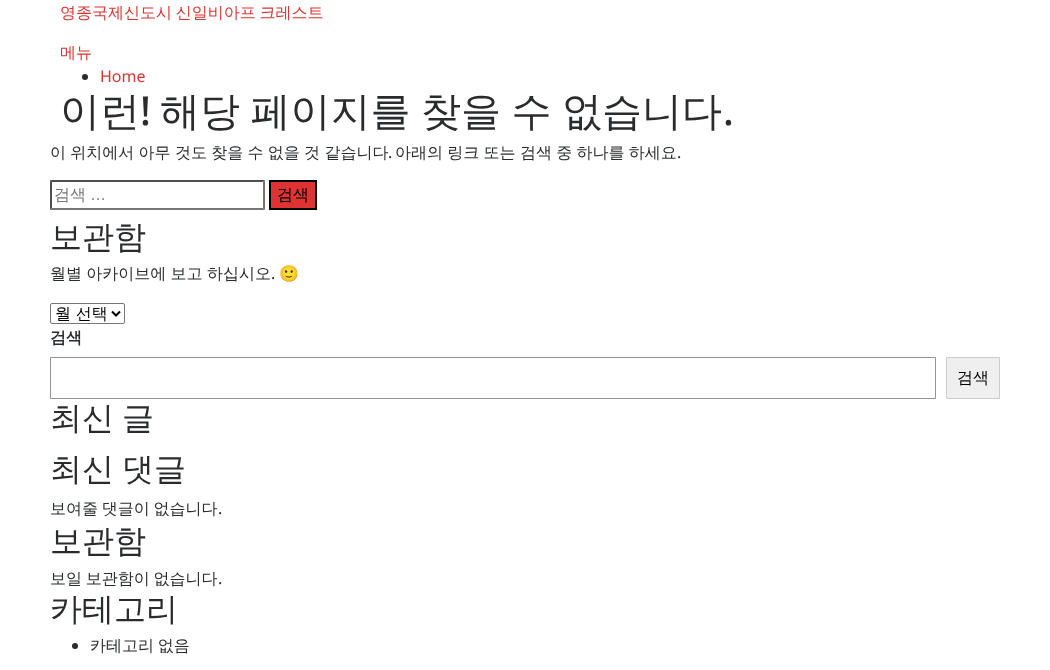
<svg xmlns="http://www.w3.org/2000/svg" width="1050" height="670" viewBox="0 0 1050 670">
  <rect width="100%" height="100%" fill="#fff"/>
  <circle cx="85" cy="77" r="3" fill="#292b2c"/>
  <path d="M50 180H265L263 182H52Z" fill="#4f4f4f"/>
  <path d="M265 180V210L263 208V182Z" fill="#767676"/>
  <path d="M265 210H50L52 208H263Z" fill="#767676"/>
  <path d="M50 210V180L52 182V208Z" fill="#4f4f4f"/>
  <path d="M270 181h46v28H270z" fill="#d33" stroke="#000" stroke-width="2"/>
  <rect x="50.5" y="303.5" width="74" height="20" rx="1.5" fill="none" stroke="#767676"/>
  <path d="M112 311.5L116 315.5L120 311.5" fill="none" stroke="#000" stroke-width="2"/>
  <path d="M50.5 357.5h885v41H50.5z" fill="none" stroke="#949494"/>
  <path d="M946.5 357.5h53v41H946.5z" fill="#efefef" stroke="#ccc"/>
  <circle cx="75" cy="646" r="3" fill="#292b2c"/>
  <g font-family="WenQuanYi Zen Hei" font-size="16" font-weight="500" fill="#d33">
    <text x="60" y="18" word-spacing="-1">영종국제신도시 신일비아프 크레스트</text>
    <text x="60" y="58">메뉴</text>
  </g>
  <text x="100" y="82" font-family="Noto Sans" font-size="16" fill="#d33">Home</text>
  <text x="60" y="125" font-family="WenQuanYi Zen Hei" font-size="40" font-weight="500" fill="#292b2c">이런</text>
  <text x="140" y="125" font-family="Noto Sans" font-size="40" font-weight="500" fill="#292b2c">!</text>
  <text x="160" y="125" word-spacing="-1.5" font-family="WenQuanYi Zen Hei" font-size="40" font-weight="500" fill="#292b2c">해당 페이지를 찾을 수 없습니다</text>
  <text x="723" y="125" font-family="Noto Sans" font-size="40" font-weight="500" fill="#292b2c">.</text>
  <text x="50" y="158" word-spacing="-0.5" font-family="WenQuanYi Zen Hei" font-size="16" font-weight="500" fill="#292b2c">이 위치에서 아무 것도 찾을 수 없을 것 같습니다</text>
  <text x="388" y="158" font-family="Noto Sans" font-size="16" fill="#292b2c">.</text>
  <text x="395" y="158" word-spacing="-0.5" font-family="WenQuanYi Zen Hei" font-size="16" font-weight="500" fill="#292b2c">아래의 링크 또는 검색 중 하나를 하세요</text>
  <text x="677" y="158" font-family="Noto Sans" font-size="16" fill="#292b2c">.</text>
  <text x="54" y="200" font-family="WenQuanYi Zen Hei" font-size="16" font-weight="500" fill="#757575">검색</text>
  <text x="90" y="200" font-family="Liberation Sans" font-size="16" fill="#757575">…</text>
  <text x="277" y="200" font-family="WenQuanYi Zen Hei" font-size="16" font-weight="500" fill="#000">검색</text>
  <text x="50" y="248" font-family="WenQuanYi Zen Hei" font-size="32" font-weight="500" fill="#292b2c">보관함</text>
  <text x="50" y="279" word-spacing="-0.5" font-family="WenQuanYi Zen Hei" font-size="16" font-weight="500" fill="#292b2c">월별 아카이브에 보고 하십시오</text>
  <text x="271" y="279" font-family="Noto Sans" font-size="16" fill="#292b2c">.</text>
  <text x="279" y="279" font-family="Noto Color Emoji" font-size="16" fill="#292b2c">🙂</text>
  <text x="55" y="319" font-family="WenQuanYi Zen Hei" font-size="16" font-weight="500" fill="#000">월 선택</text>
  <text x="50" y="343" font-family="WenQuanYi Zen Hei" font-size="16" font-weight="bold" fill="#292b2c">검색</text>
  <text x="957" y="383" font-family="WenQuanYi Zen Hei" font-size="16" font-weight="500" fill="#000">검색</text>
  <g font-family="WenQuanYi Zen Hei" font-size="32" font-weight="500" fill="#292b2c">
    <text x="50" y="429" word-spacing="-1.5">최신 글</text>
    <text x="50" y="480" word-spacing="-1.5">최신 댓글</text>
  </g>
  <text x="50" y="514" word-spacing="-1" font-family="WenQuanYi Zen Hei" font-size="16" font-weight="500" fill="#292b2c">보여줄 댓글이 없습니다</text>
  <text x="218" y="514" font-family="Noto Sans" font-size="16" fill="#292b2c">.</text>
  <text x="50" y="552" font-family="WenQuanYi Zen Hei" font-size="32" font-weight="500" fill="#292b2c">보관함</text>
  <text x="50" y="584" word-spacing="-1" font-family="WenQuanYi Zen Hei" font-size="16" font-weight="500" fill="#292b2c">보일 보관함이 없습니다</text>
  <text x="218" y="584" font-family="Noto Sans" font-size="16" fill="#292b2c">.</text>
  <text x="50" y="620" font-family="WenQuanYi Zen Hei" font-size="32" font-weight="500" fill="#292b2c">카테고리</text>
  <text x="90" y="651" word-spacing="-1" font-family="WenQuanYi Zen Hei" font-size="16" font-weight="500" fill="#292b2c">카테고리 없음</text>
</svg>
